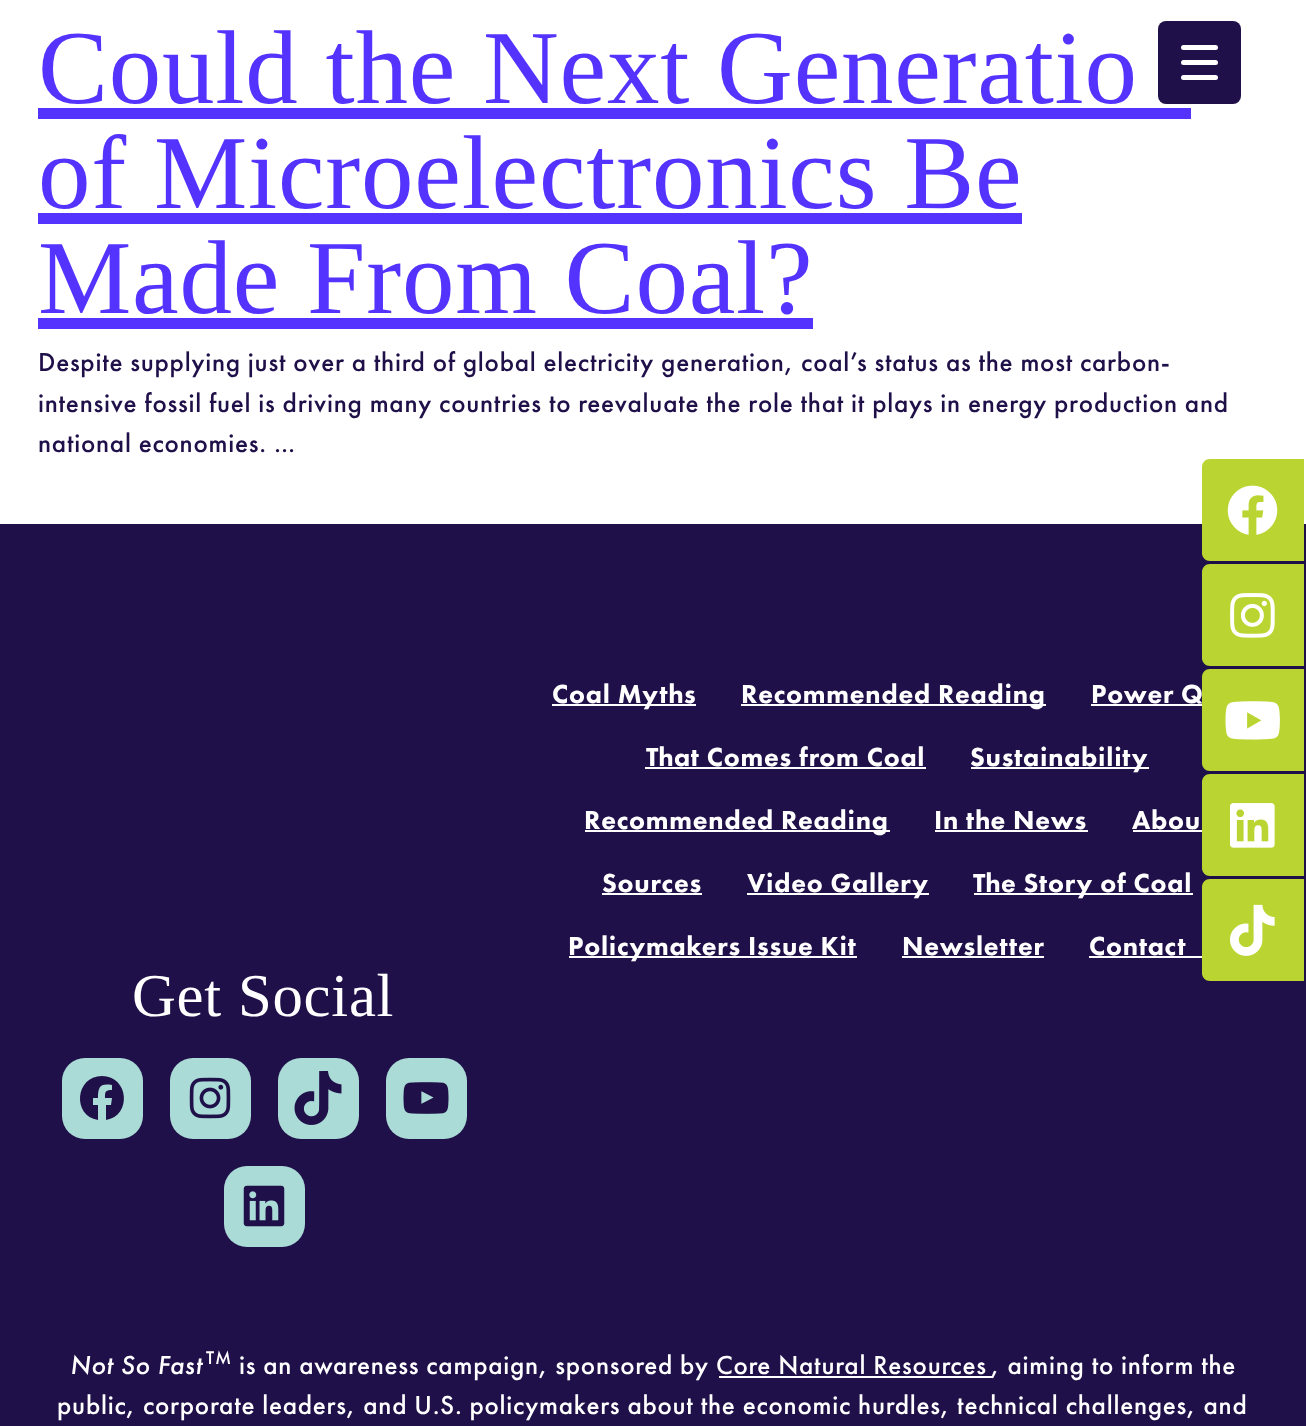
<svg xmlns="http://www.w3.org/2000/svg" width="1306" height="1426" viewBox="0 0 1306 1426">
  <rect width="100%" height="100%" fill="#fff"/>
  <rect x="1158" y="21" width="83" height="83" rx="8" fill="#201049"/>
  <rect x="1181" y="60" width="37" height="5" rx="2.5" fill="#fff"/>
  <rect x="1181" y="45" width="37" height="5" rx="2.5" fill="#fff"/>
  <rect x="1181" y="75" width="37" height="5" rx="2.5" fill="#fff"/>
  <path d="M38 108h1153v11H38z" fill="#53f"/>
  <path d="M38 213h984v11H38z" fill="#53f"/>
  <path d="M38 318h775v11H38z" fill="#53f"/>
  <path d="M0 524h1306v902H0z" fill="#201049"/>
  <path d="M552 704h144v2H552z" fill="#fff"/>
  <path d="M741 704h305v2H741z" fill="#fff"/>
  <path d="M1091 704h111v2H1091z" fill="#fff"/>
  <path d="M645 767h281v2H645z" fill="#fff"/>
  <path d="M971 767h178v2H971z" fill="#fff"/>
  <path d="M585 830h305v2H585z" fill="#fff"/>
  <path d="M935 830h153v2H935z" fill="#fff"/>
  <path d="M1133 830h76v2H1133z" fill="#fff"/>
  <path d="M602 893h100v2H602z" fill="#fff"/>
  <path d="M747 893h182v2H747z" fill="#fff"/>
  <path d="M974 893h219v2H974z" fill="#fff"/>
  <path d="M569 956h288v2H569z" fill="#fff"/>
  <path d="M902 956h142v2H902z" fill="#fff"/>
  <path d="M1089 956h113v2H1089z" fill="#fff"/>
  <rect x="62" y="1058" width="81" height="81" rx="23" fill="#aadbd7"/>
  <path d="M102 1076C75 1076 72 1116 98 1120V1105H93V1098H98C98 1087 100 1083 112 1085V1090C105 1090 105 1092 105 1098H112L111 1105H106V1120C132 1116 129 1076 102 1076Z" fill="#201049"/>
  <rect x="170" y="1058" width="81" height="81" rx="23" fill="#aadbd7"/>
  <image x="189" y="1077" width="42" height="42" href="img/1.png"/>
  <rect x="278" y="1058" width="81" height="81" rx="23" fill="#aadbd7"/>
  <image x="294" y="1071" width="48" height="54" href="img/2.png"/>
  <rect x="386" y="1058" width="81" height="81" rx="23" fill="#aadbd7"/>
  <image x="403" y="1082" width="46" height="32" href="img/3.png"/>
  <rect x="224" y="1166" width="81" height="81" rx="23" fill="#aadbd7"/>
  <image x="243" y="1185" width="42" height="42" href="img/4.png"/>
  <path d="M719 1376h273v2H719z" fill="#fff"/>
  <path d="M1210 459H1304V561H1210C1205.5 561 1202 557.5 1202 553V467C1202 462.5 1205.5 459 1210 459Z" fill="#bad532"/>
  <image x="1227" y="485" width="51" height="50" href="img/5.png"/>
  <path d="M1210 564H1304V666H1210C1205.5 666 1202 662.5 1202 658V572C1202 567.5 1205.5 564 1210 564Z" fill="#bad532"/>
  <image x="1230" y="593" width="45" height="45" href="img/6.png"/>
  <path d="M1210 774H1304V876H1210C1205.5 876 1202 872.5 1202 868V782C1202 777.5 1205.5 774 1210 774Z" fill="#bad532"/>
  <image x="1230" y="803" width="45" height="45" href="img/8.png"/>
  <path d="M1210 879H1304V981H1210C1205.5 981 1202 977.5 1202 973V887C1202 882.5 1205.5 879 1210 879Z" fill="#bad532"/>
  <image x="1230" y="904" width="45" height="52" href="img/9.png"/>
  <g font-family="Liberation Serif" font-size="105" letter-spacing="0.75" fill="#53f">
    <text x="38" y="103">Could the Next Generatio</text>
    <text x="38" y="208">of Microelectronics Be</text>
    <text x="38" y="313">Made From Coal?</text>
  </g>
  <g font-family="Futura PT" font-size="27" font-weight="500" letter-spacing="0.75" fill="#201049">
    <text x="38" y="371">Despite supplying just over a third of global electricity generation, coal’s status as the most carbon-</text>
    <text x="38" y="412">intensive fossil fuel is driving many countries to reevaluate the role that it plays in energy production and</text>
    <text x="38" y="452">national economies. …</text>
  </g>
  <g font-family="Futura PT" font-size="27" font-weight="900" letter-spacing="0.75" fill="#fff">
    <text x="552" y="703">Coal Myths</text>
    <text x="741" y="703">Recommended Reading</text>
    <text x="1091" y="703">Power Q</text>
    <text x="646" y="766">That Comes from Coal</text>
    <text x="970" y="766">Sustainability</text>
    <text x="584" y="829">Recommended Reading</text>
    <text x="934" y="829">In the News</text>
    <text x="1132" y="829">Abou</text>
    <text x="602" y="892">Sources</text>
    <text x="747" y="892">Video Gallery</text>
    <text x="973" y="892">The Story of Coal</text>
    <text x="568" y="955">Policymakers Issue Kit</text>
    <text x="902" y="955">Newsletter</text>
    <text x="1089" y="955">Contact</text>
  </g>
  <text x="132" y="1016" font-family="Liberation Serif" font-size="60.75" letter-spacing="0.75" fill="#fff">Get Social</text>
  <text x="70" y="1374" font-family="Futura PT" font-size="27" font-weight="500" font-style="italic" letter-spacing="0.75" fill="#fff">Not So Fast</text>
  <text x="206" y="1364" font-family="Futura PT" font-size="19" font-weight="500" letter-spacing="0.75" fill="#fff">TM</text>
  <g font-family="Futura PT" font-size="27" font-weight="500" letter-spacing="0.75" fill="#fff">
    <text x="239" y="1374">is an awareness campaign, sponsored by Core Natural Resources</text>
    <text x="991" y="1374">, aiming to inform the</text>
    <text x="57" y="1414">public, corporate leaders, and U.S. policymakers about the economic hurdles, technical challenges, and</text>
  </g>
  <path d="M1210 669H1304V771H1210C1205.5 771 1202 767.5 1202 763V677C1202 672.5 1205.5 669 1210 669Z" fill="#bad532"/>
  <image x="1225" y="701" width="55" height="39" href="img/7.png"/>
</svg>
